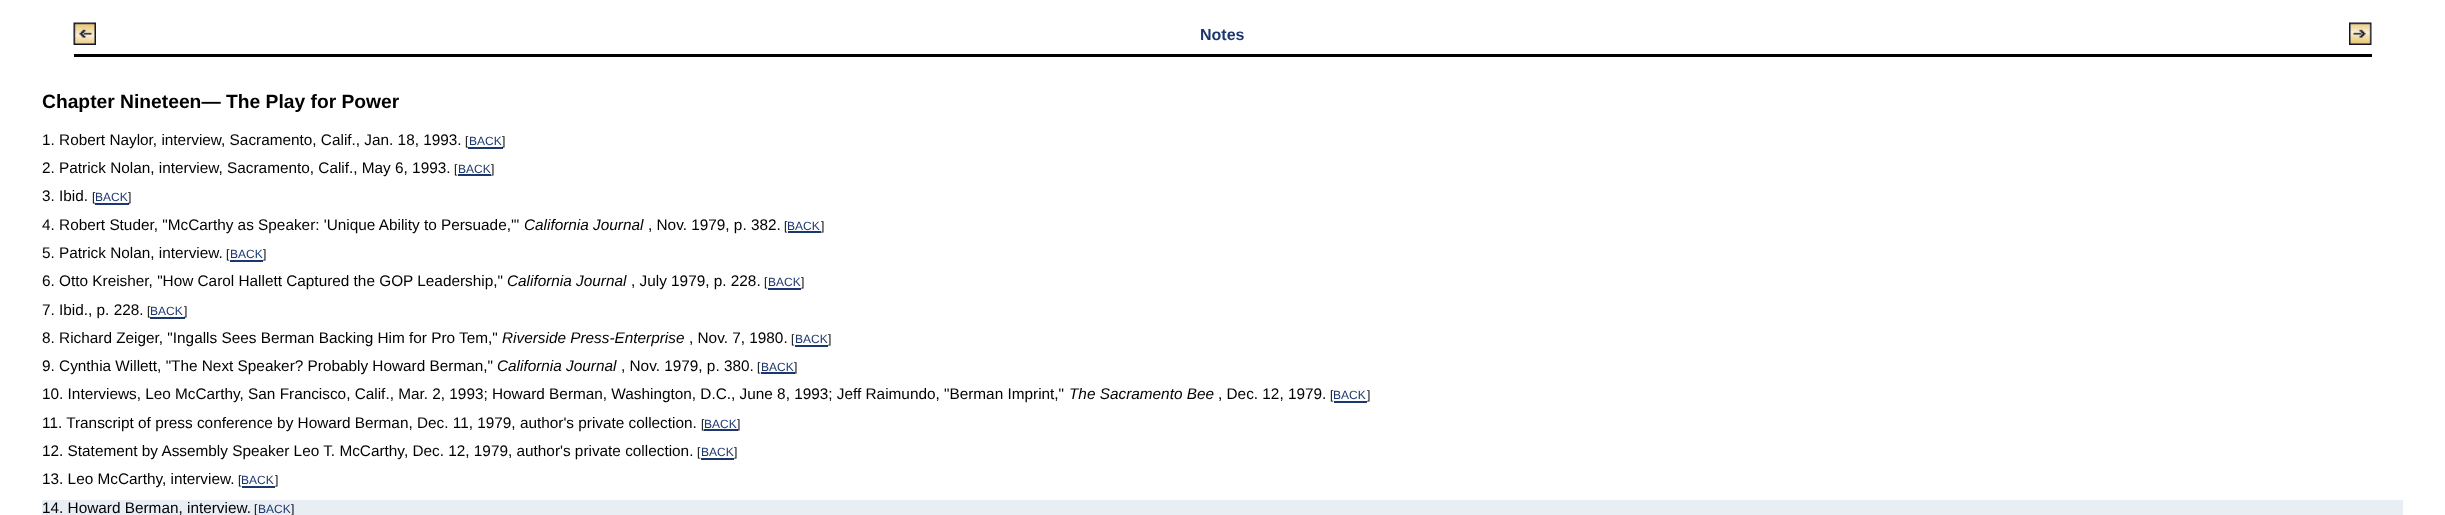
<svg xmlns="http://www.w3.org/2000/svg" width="2445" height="515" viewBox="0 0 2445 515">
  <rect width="100%" height="100%" fill="#fff"/>
  <image x="73" y="22" width="23" height="23" href="img/1.png"/>
  <image x="2349" y="22" width="23" height="23" href="img/2.png"/>
  <path d="M74 54h2298v3H74z" fill="#000"/>
  <path d="M458 174h33v2H458z" fill="#1c376e"/>
  <path d="M95 203h34v2H95z" fill="#1c376e"/>
  <path d="M788 231h33v2H788z" fill="#1c376e"/>
  <path d="M230 260h33v2H230z" fill="#1c376e"/>
  <path d="M768 288h33v2H768z" fill="#1c376e"/>
  <path d="M795 345h33v2H795z" fill="#1c376e"/>
  <path d="M761 372h34v2H761z" fill="#1c376e"/>
  <path d="M1334 401h33v2H1334z" fill="#1c376e"/>
  <path d="M704 429h34v2H704z" fill="#1c376e"/>
  <path d="M701 458h33v2H701z" fill="#1c376e"/>
  <path d="M242 486h33v2H242z" fill="#1c376e"/>
  <path d="M42 500h2361v15H42z" fill="#e9eef4"/>
  <text x="1200" y="40" font-family="Liberation Sans" font-size="16" font-weight="bold" fill="#1c376e">Notes</text>
  <text x="42" y="108" font-family="Liberation Sans" font-size="19.25" font-weight="bold" fill="#000">Chapter Nineteen— The Play for Power</text>
  <text x="42" y="145" font-family="Liberation Sans" font-size="15.35" fill="#000">1. Robert Naylor, interview, Sacramento, Calif., Jan. 18, 1993.</text>
  <text x="465" y="145" font-family="Liberation Sans" font-size="12" fill="#000">[</text>
  <path d="M468 147h35v2H468z" fill="#1c376e"/>
  <text x="469" y="145" font-family="Liberation Sans" font-size="12" fill="#1c376e">BACK</text>
  <text x="502" y="145" font-family="Liberation Sans" font-size="12" fill="#000">]</text>
  <text x="42" y="173" font-family="Liberation Sans" font-size="15.35" fill="#000">2. Patrick Nolan, interview, Sacramento, Calif., May 6, 1993.</text>
  <text x="454" y="173" font-family="Liberation Sans" font-size="12" fill="#000">[</text>
  <text x="458" y="173" font-family="Liberation Sans" font-size="12" fill="#1c376e">BACK</text>
  <text x="491" y="173" font-family="Liberation Sans" font-size="12" fill="#000">]</text>
  <text x="42" y="201" font-family="Liberation Sans" font-size="15.35" fill="#000">3. Ibid.</text>
  <text x="92" y="201" font-family="Liberation Sans" font-size="12" fill="#000">[</text>
  <text x="95" y="201" font-family="Liberation Sans" font-size="12" fill="#1c376e">BACK</text>
  <text x="128" y="201" font-family="Liberation Sans" font-size="12" fill="#000">]</text>
  <text x="42" y="230" font-family="Liberation Sans" font-size="15.35" fill="#000">4. Robert Studer, "McCarthy as Speaker: 'Unique Ability to Persuade,'"</text>
  <text x="524" y="230" font-family="Liberation Sans" font-size="15.35" font-style="italic" fill="#000">California Journal</text>
  <text x="648" y="230" font-family="Liberation Sans" font-size="15.35" fill="#000">, Nov. 1979, p. 382.</text>
  <text x="784" y="230" font-family="Liberation Sans" font-size="12" fill="#000">[</text>
  <text x="787" y="230" font-family="Liberation Sans" font-size="12" fill="#1c376e">BACK</text>
  <text x="821" y="230" font-family="Liberation Sans" font-size="12" fill="#000">]</text>
  <text x="42" y="258" font-family="Liberation Sans" font-size="15.35" fill="#000">5. Patrick Nolan, interview.</text>
  <text x="226" y="258" font-family="Liberation Sans" font-size="12" fill="#000">[</text>
  <text x="230" y="258" font-family="Liberation Sans" font-size="12" fill="#1c376e">BACK</text>
  <text x="263" y="258" font-family="Liberation Sans" font-size="12" fill="#000">]</text>
  <text x="42" y="286" font-family="Liberation Sans" font-size="15.35" fill="#000">6. Otto Kreisher, "How Carol Hallett Captured the GOP Leadership,"</text>
  <text x="507" y="286" font-family="Liberation Sans" font-size="15.35" font-style="italic" fill="#000">California Journal</text>
  <text x="631" y="286" font-family="Liberation Sans" font-size="15.35" fill="#000">, July 1979, p. 228.</text>
  <text x="764" y="286" font-family="Liberation Sans" font-size="12" fill="#000">[</text>
  <text x="768" y="286" font-family="Liberation Sans" font-size="12" fill="#1c376e">BACK</text>
  <text x="801" y="286" font-family="Liberation Sans" font-size="12" fill="#000">]</text>
  <text x="42" y="315" font-family="Liberation Sans" font-size="15.35" fill="#000">7. Ibid., p. 228.</text>
  <text x="147" y="315" font-family="Liberation Sans" font-size="12" fill="#000">[</text>
  <path d="M150 317h35v2H150z" fill="#1c376e"/>
  <text x="150" y="315" font-family="Liberation Sans" font-size="12" fill="#1c376e">BACK</text>
  <text x="184" y="315" font-family="Liberation Sans" font-size="12" fill="#000">]</text>
  <text x="42" y="343" font-family="Liberation Sans" font-size="15.35" fill="#000">8. Richard Zeiger, "Ingalls Sees Berman Backing Him for Pro Tem,"</text>
  <text x="502" y="343" font-family="Liberation Sans" font-size="15.35" font-style="italic" fill="#000">Riverside Press-Enterprise</text>
  <text x="689" y="343" font-family="Liberation Sans" font-size="15.35" fill="#000">, Nov. 7, 1980.</text>
  <text x="791" y="343" font-family="Liberation Sans" font-size="12" fill="#000">[</text>
  <text x="795" y="343" font-family="Liberation Sans" font-size="12" fill="#1c376e">BACK</text>
  <text x="828" y="343" font-family="Liberation Sans" font-size="12" fill="#000">]</text>
  <text x="42" y="371" font-family="Liberation Sans" font-size="15.35" fill="#000">9. Cynthia Willett, "The Next Speaker? Probably Howard Berman,"</text>
  <text x="497" y="371" font-family="Liberation Sans" font-size="15.35" font-style="italic" fill="#000">California Journal</text>
  <text x="621" y="371" font-family="Liberation Sans" font-size="15.35" fill="#000">, Nov. 1979, p. 380.</text>
  <text x="757" y="371" font-family="Liberation Sans" font-size="12" fill="#000">[</text>
  <text x="761" y="371" font-family="Liberation Sans" font-size="12" fill="#1c376e">BACK</text>
  <text x="794" y="371" font-family="Liberation Sans" font-size="12" fill="#000">]</text>
  <text x="42" y="399" font-family="Liberation Sans" font-size="15.35" fill="#000">10. Interviews, Leo McCarthy, San Francisco, Calif., Mar. 2, 1993; Howard Berman, Washington, D.C., June 8, 1993; Jeff Raimundo, "Berman Imprint,"</text>
  <text x="1069" y="399" font-family="Liberation Sans" font-size="15.35" font-style="italic" fill="#000">The Sacramento Bee</text>
  <text x="1218" y="399" font-family="Liberation Sans" font-size="15.35" fill="#000">, Dec. 12, 1979.</text>
  <text x="1330" y="399" font-family="Liberation Sans" font-size="12" fill="#000">[</text>
  <text x="1333" y="399" font-family="Liberation Sans" font-size="12" fill="#1c376e">BACK</text>
  <text x="1367" y="399" font-family="Liberation Sans" font-size="12" fill="#000">]</text>
  <text x="42" y="428" font-family="Liberation Sans" font-size="15.35" fill="#000">11. Transcript of press conference by Howard Berman, Dec. 11, 1979, author's private collection.</text>
  <text x="701" y="428" font-family="Liberation Sans" font-size="12" fill="#000">[</text>
  <text x="704" y="428" font-family="Liberation Sans" font-size="12" fill="#1c376e">BACK</text>
  <text x="737" y="428" font-family="Liberation Sans" font-size="12" fill="#000">]</text>
  <text x="42" y="456" font-family="Liberation Sans" font-size="15.35" fill="#000">12. Statement by Assembly Speaker Leo T. McCarthy, Dec. 12, 1979, author's private collection.</text>
  <text x="697" y="456" font-family="Liberation Sans" font-size="12" fill="#000">[</text>
  <text x="701" y="456" font-family="Liberation Sans" font-size="12" fill="#1c376e">BACK</text>
  <text x="734" y="456" font-family="Liberation Sans" font-size="12" fill="#000">]</text>
  <text x="42" y="484" font-family="Liberation Sans" font-size="15.35" fill="#000">13. Leo McCarthy, interview.</text>
  <text x="238" y="484" font-family="Liberation Sans" font-size="12" fill="#000">[</text>
  <text x="241" y="484" font-family="Liberation Sans" font-size="12" fill="#1c376e">BACK</text>
  <text x="275" y="484" font-family="Liberation Sans" font-size="12" fill="#000">]</text>
  <text x="42" y="513" font-family="Liberation Sans" font-size="15.35" fill="#000">14. Howard Berman, interview.</text>
  <text x="254" y="513" font-family="Liberation Sans" font-size="12" fill="#000">[</text>
  <text x="258" y="513" font-family="Liberation Sans" font-size="12" fill="#1c376e">BACK</text>
  <text x="291" y="513" font-family="Liberation Sans" font-size="12" fill="#000">]</text>
</svg>
